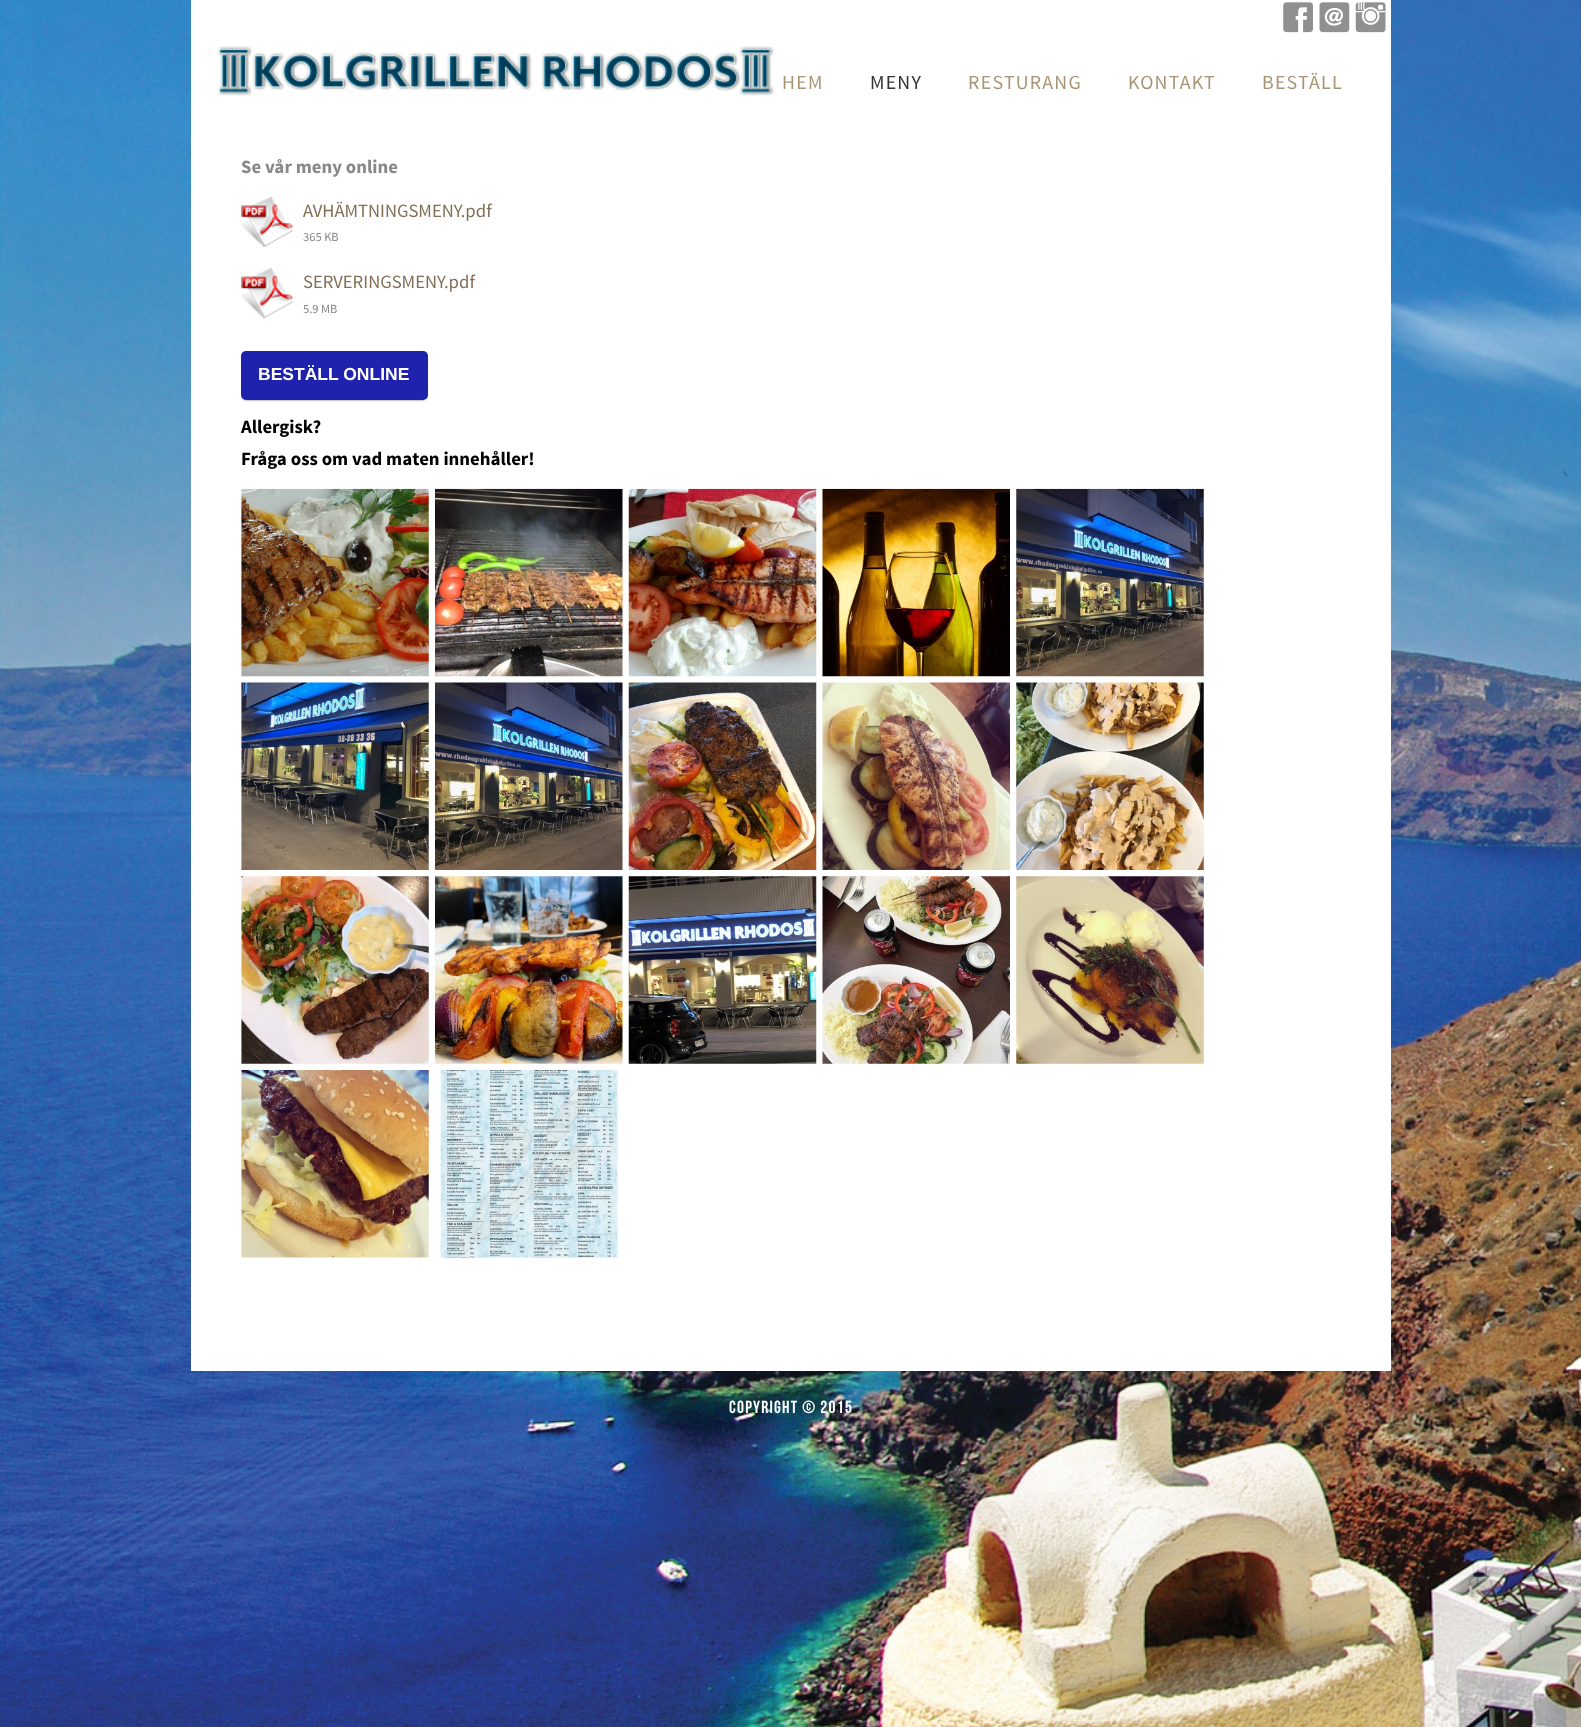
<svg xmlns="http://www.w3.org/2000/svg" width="1581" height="1727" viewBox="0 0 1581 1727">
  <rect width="100%" height="100%" fill="#fff"/>
  <image x="0" y="0" width="1581" height="1727" href="img/1.png"/>
  <path d="M191 0h1200v1371H191z" fill="#fff"/>
  <image x="217" y="46" width="557" height="50" href="img/2.png"/>
  <image x="1283" y="2" width="30" height="31" href="img/3.png"/>
  <image x="1319" y="2" width="31" height="31" href="img/4.png"/>
  <image x="1355" y="2" width="31" height="31" href="img/5.png"/>
  <image x="241" y="196" width="52" height="52" href="img/6.png"/>
  <image x="241" y="267" width="52" height="52" href="img/7.png"/>
  <rect x="243" y="354" width="183" height="46" rx="4" fill="#00000099" filter="blur(1px)"/>
  <rect x="241" y="351" width="187" height="49" rx="5" fill="#1f22ad"/>
  <image x="241" y="488" width="188" height="189" href="img/8.png"/>
  <image x="435" y="488" width="188" height="189" href="img/9.png"/>
  <image x="628" y="488" width="189" height="189" href="img/10.png"/>
  <image x="822" y="488" width="188" height="189" href="img/11.png"/>
  <image x="1016" y="488" width="188" height="189" href="img/12.png"/>
  <image x="241" y="682" width="188" height="188" href="img/13.png"/>
  <image x="435" y="682" width="188" height="188" href="img/14.png"/>
  <image x="628" y="682" width="189" height="188" href="img/15.png"/>
  <image x="822" y="682" width="188" height="188" href="img/16.png"/>
  <image x="1016" y="682" width="188" height="188" href="img/17.png"/>
  <image x="241" y="876" width="188" height="188" href="img/18.png"/>
  <image x="435" y="876" width="188" height="188" href="img/19.png"/>
  <image x="628" y="876" width="189" height="188" href="img/20.png"/>
  <image x="822" y="876" width="188" height="188" href="img/21.png"/>
  <image x="1016" y="876" width="188" height="188" href="img/22.png"/>
  <image x="241" y="1070" width="188" height="188" href="img/23.png"/>
  <image x="439" y="1070" width="180" height="188" href="img/24.png"/>
  <text x="782" y="89" font-family="Source Sans Pro" font-size="20" letter-spacing="1.25" fill="#a89575">HEM</text>
  <text x="870" y="89" font-family="Source Sans Pro" font-size="20" letter-spacing="1.25" fill="#333">MENY</text>
  <g font-family="Source Sans Pro" font-size="20" letter-spacing="1.25" fill="#a89575">
    <text x="968" y="89">RESTURANG</text>
    <text x="1128" y="89">KONTAKT</text>
    <text x="1262" y="89">BESTÄLL</text>
  </g>
  <text x="241" y="173" font-family="Source Sans Pro" font-size="18.75" font-weight="bold" fill="#888">Se vår meny online</text>
  <text x="303" y="217" font-family="Source Sans Pro" font-size="18.75" fill="#826f56">AVHÄMTNINGSMENY.pdf</text>
  <text x="303" y="241" font-family="Source Sans Pro" font-size="12.5" fill="#888">365 KB</text>
  <text x="303" y="288" font-family="Source Sans Pro" font-size="18.75" fill="#826f56">SERVERINGSMENY.pdf</text>
  <text x="303" y="313" font-family="Source Sans Pro" font-size="12.5" fill="#888">5.9 MB</text>
  <text x="258" y="380" font-family="Liberation Sans" font-size="17.5" font-weight="bold" fill="#fff">BESTÄLL ONLINE</text>
  <g font-family="Source Sans Pro" font-size="18.75" font-weight="bold" fill="#000">
    <text x="241" y="433">Allergisk?</text>
    <text x="241" y="465">Fråga oss om vad maten innehåller!</text>
  </g>
  <text x="729" y="1413" font-family="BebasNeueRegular" font-size="17.5" letter-spacing="1.25" fill="#fff">COPYRIGHT © 2015</text>
</svg>
